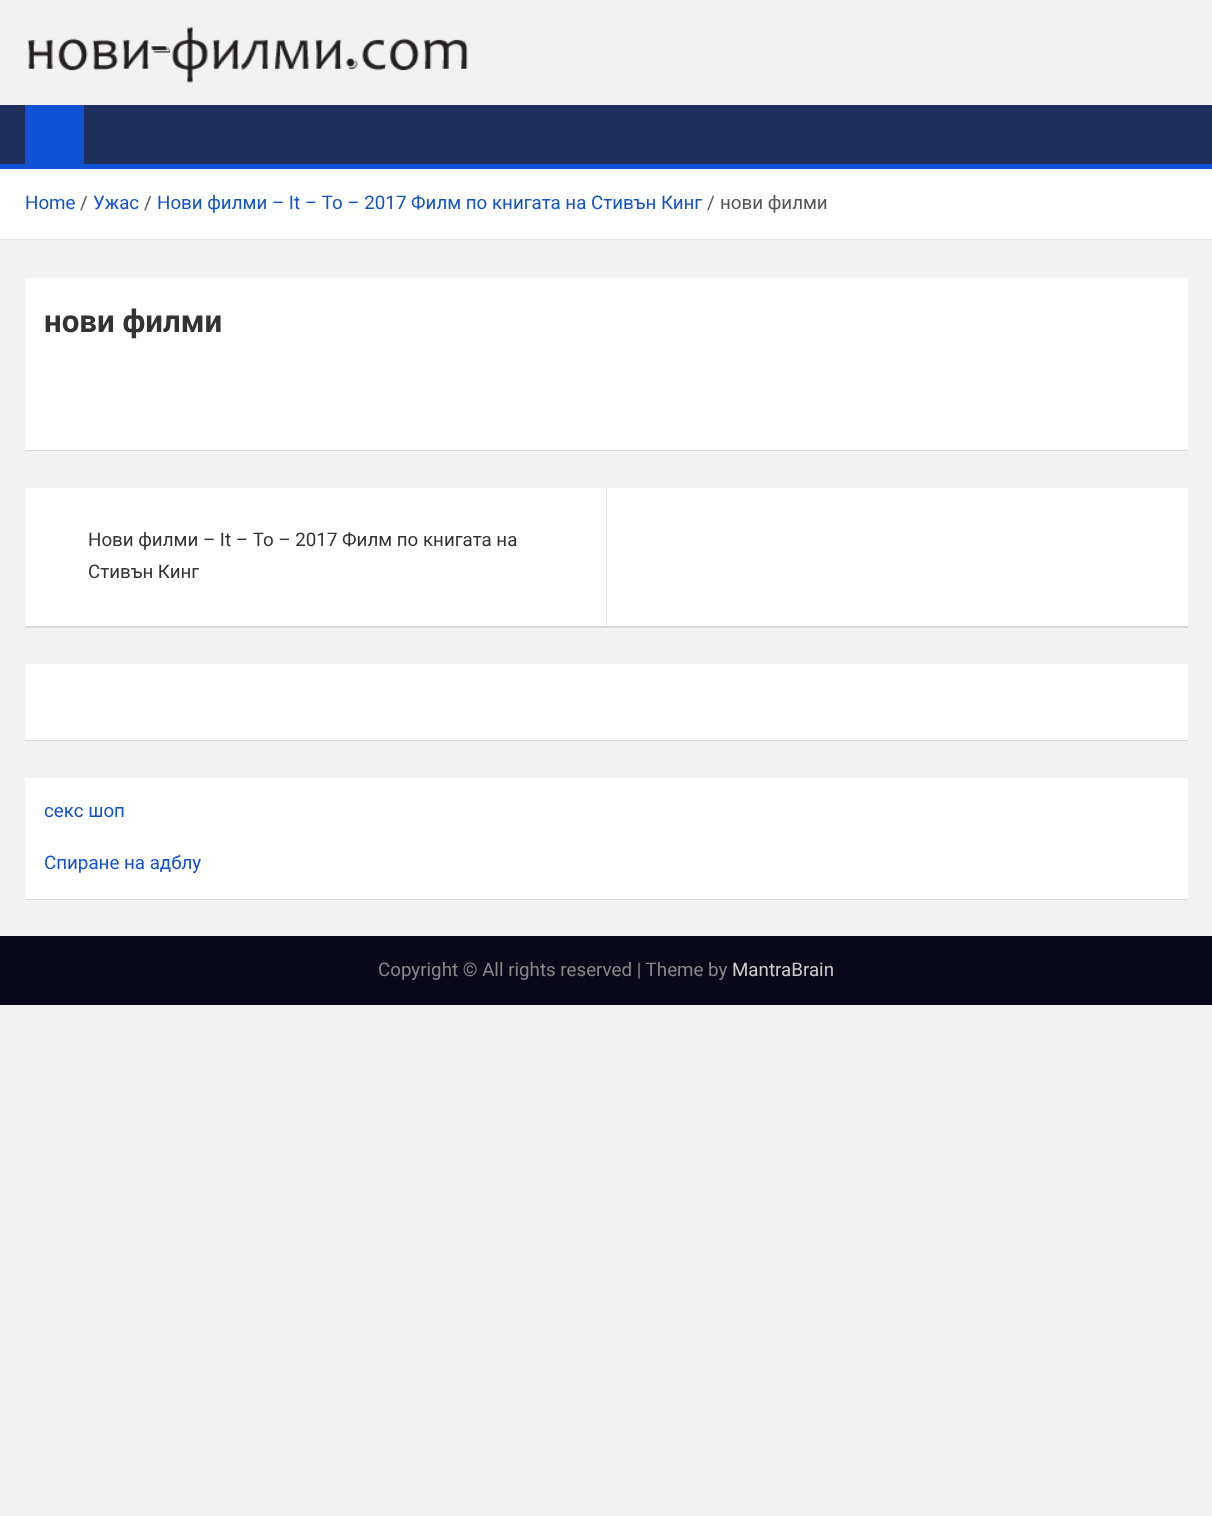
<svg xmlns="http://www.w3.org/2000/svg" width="1212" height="1516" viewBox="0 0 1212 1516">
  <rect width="100%" height="100%" fill="#f2f2f2"/>
  <image x="27" y="27" width="441" height="56" href="img/1.png"/>
  <path d="M0 105h1212v59H0z" fill="#202f5b"/>
  <path d="M25 105h59v59H25z" fill="#1151d3"/>
  <path d="M0 164h1212v5H0z" fill="#1151d3"/>
  <path d="M0 169h1212v70H0z" fill="#fff"/>
  <path d="M0 239h1212v1H0z" fill="#e6e6e6"/>
  <path d="M25 279h1163v172H25z" fill="#0000001a" filter="blur(0.5px)"/>
  <path d="M25 278h1163v172H25z" fill="#fff"/>
  <path d="M25 489h1163v139H25z" fill="#0000001a" filter="blur(0.5px)"/>
  <path d="M25 488h1163v138H25z" fill="#fff"/>
  <path d="M606 488h1v138H606z" fill="#e6e6e6"/>
  <path d="M25 665h1163v76H25z" fill="#0000001a" filter="blur(0.5px)"/>
  <path d="M25 664h1163v76H25z" fill="#fff"/>
  <path d="M25 779h1163v121H25z" fill="#0000001a" filter="blur(0.5px)"/>
  <path d="M25 778h1163v121H25z" fill="#fff"/>
  <path d="M0 936h1212v69H0z" fill="#090818"/>
  <text x="25" y="209" font-family="Roboto" font-size="18.75" fill="#1151d3">Home</text>
  <text x="80" y="209" font-family="Roboto" font-size="18.75" fill="#555">/</text>
  <text x="93" y="209" font-family="Roboto" font-size="18.75" fill="#1151d3">Ужас</text>
  <text x="144" y="209" font-family="Roboto" font-size="18.75" fill="#555">/</text>
  <text x="157" y="209" font-family="Roboto" font-size="18.75" fill="#1151d3">Нови филми – It – То – 2017 Филм по книгата на Стивън Кинг</text>
  <g font-family="Roboto" font-size="18.75" fill="#555">
    <text x="707" y="209">/</text>
    <text x="720" y="209">нови филми</text>
  </g>
  <text x="44" y="332" font-family="Roboto" font-size="31.25" font-weight="bold" fill="#333">нови филми</text>
  <g font-family="Roboto" font-size="18.75" fill="#333">
    <text x="88" y="546">Нови филми – It – То – 2017 Филм по книгата на</text>
    <text x="88" y="578">Стивън Кинг</text>
  </g>
  <g font-family="Roboto" font-size="18.75" fill="#1151d3">
    <text x="44" y="817">секс шоп</text>
    <text x="44" y="869">Спиране на адблу</text>
  </g>
  <text x="378" y="976" font-family="Roboto" font-size="18.75" fill="#888">Copyright © All rights reserved | Theme by</text>
  <text x="732" y="976" font-family="Roboto" font-size="18.75" fill="#ccc">MantraBrain</text>
</svg>
